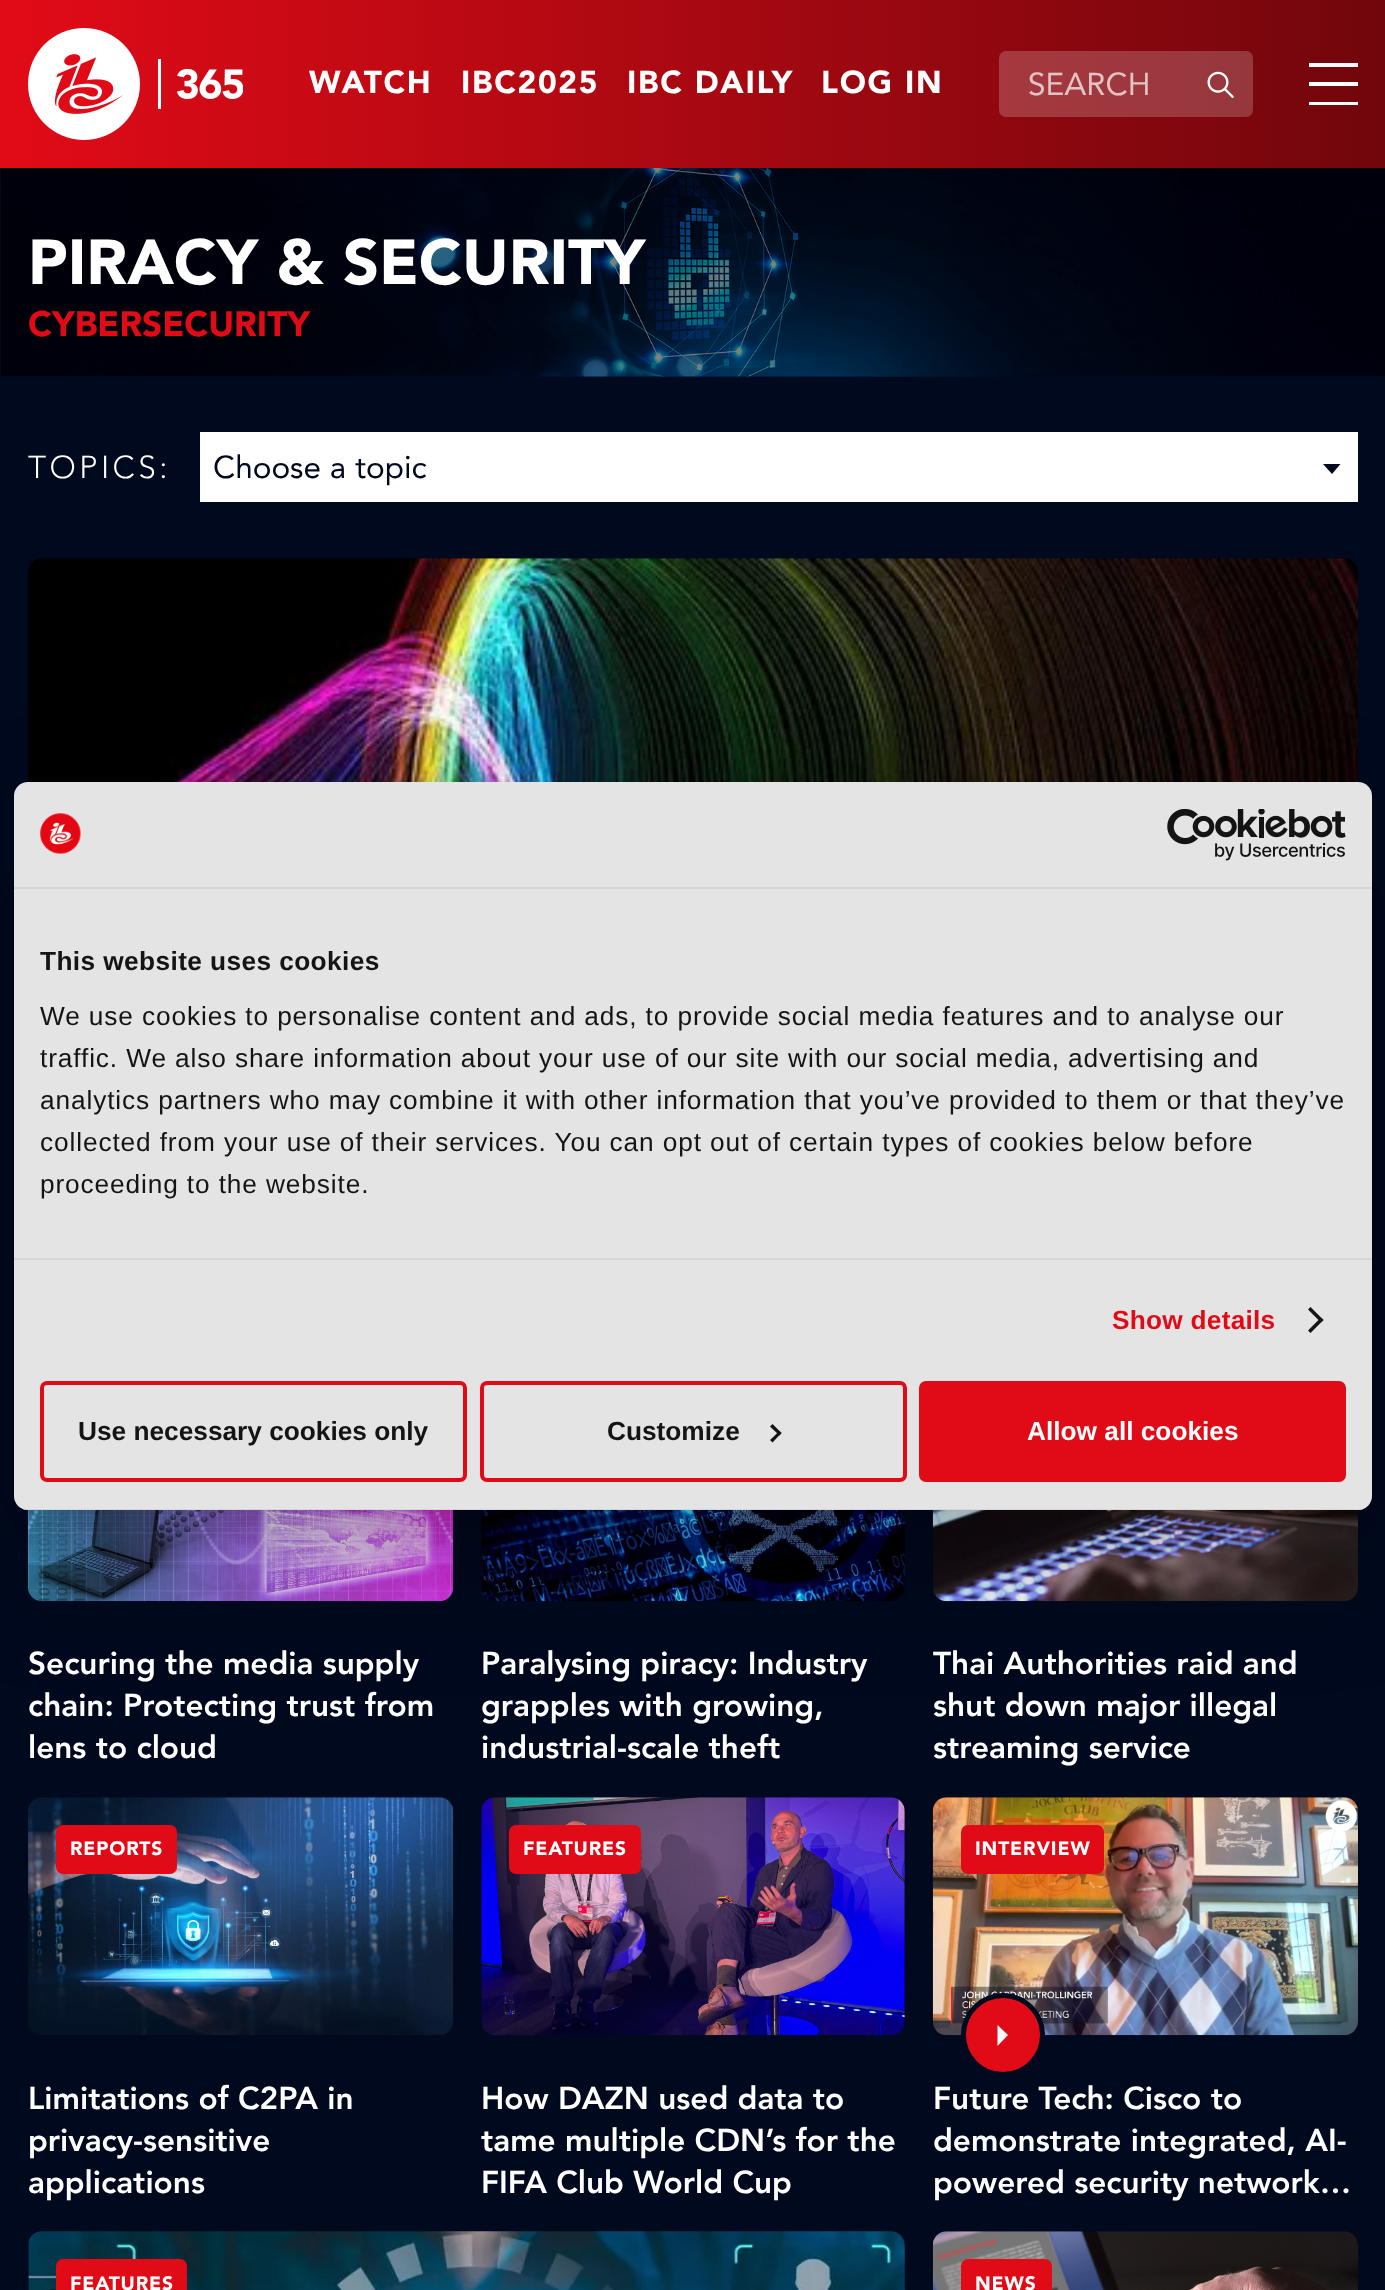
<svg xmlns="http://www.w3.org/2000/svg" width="1385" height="2290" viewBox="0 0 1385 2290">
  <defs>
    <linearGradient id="g1" gradientUnits="userSpaceOnUse" x1="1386" y1="84" x2="0" y2="84"><stop offset="0" stop-color="#71060c"/><stop offset="1" stop-color="#e10b17"/></linearGradient>
    <clipPath id="clip1"><rect x="14" y="782" width="1358" height="728" rx="14"/></clipPath>
  </defs>
  <rect width="100%" height="100%" fill="#00091e"/>
  <path d="M0 0h1385v168H0z" fill="url(#g1)"/>
  <image x="28" y="28" width="215" height="112" href="img/1.png"/>
  <rect x="999" y="51" width="254" height="66" rx="7" fill="#ffffff33"/>
  <image x="1207" y="71" width="27" height="27" href="img/2.png"/>
  <path d="M1309 82h49v4H1309z" fill="#fff"/>
  <path d="M1309 63h49v4H1309z" fill="#fff"/>
  <path d="M1309 102h49v3H1309z" fill="#fff"/>
  <image x="0" y="168" width="1385" height="209" href="img/3.png"/>
  <path d="M200 432h1158v70H200z" fill="#fff"/>
  <path d="M1323 464H1340.5L1332 474Z" fill="#00091e"/>
  <image x="28" y="558" width="1330" height="224" href="img/4.png"/>
  <image x="28" y="1510" width="426" height="92" href="img/5.png"/>
  <image x="481" y="1510" width="424" height="92" href="img/6.png"/>
  <image x="932" y="1510" width="426" height="92" href="img/7.png"/>
  <image x="28" y="1797" width="426" height="238" href="img/8.png"/>
  <rect x="56" y="1825" width="121" height="49" rx="7" fill="#e10b17"/>
  <image x="481" y="1797" width="424" height="239" href="img/9.png"/>
  <rect x="509" y="1825" width="132" height="49" rx="7" fill="#e10b17"/>
  <image x="932" y="1797" width="426" height="239" href="img/10.png"/>
  <rect x="961" y="1825" width="143" height="49" rx="7" fill="#e10b17"/>
  <circle cx="1003" cy="2035" r="39.5" fill="#e10b17" stroke="#00091e" stroke-width="5"/>
  <path d="M997.5 2046V2025L1008 2035Z" fill="#fff"/>
  <image x="28" y="2231" width="877" height="59" href="img/11.png"/>
  <rect x="56" y="2259" width="131" height="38" rx="7" fill="#e10b17"/>
  <image x="932" y="2231" width="426" height="59" href="img/12.png"/>
  <rect x="961" y="2259" width="91" height="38" rx="7" fill="#e10b17"/>
  <rect x="14" y="838" width="1358" height="728" rx="14" fill="#0000004d" filter="blur(59.5px)"/>
  <rect x="14" y="782" width="1358" height="728" rx="14" fill="#e4e4e4"/>
  <path d="M14 887h1358v2H14z" fill="#d6d6d6"/>
  <image x="40" y="813" width="41" height="41" href="img/13.png"/>
  <image x="1167" y="809" width="179" height="52" href="img/14.png"/>
  <path d="M14 1258h1358v2H14z" fill="#d6d6d6"/>
  <path d="M1310.5 1307L1323.5 1320L1321 1322.5L1308 1309.5Z" fill="#141414"/>
  <path d="M1321 1317.5L1323.5 1320L1310.5 1333L1308 1330.5Z" fill="#141414"/>
  <g clip-path="url(#clip1)">
    <path d="M23 1509h1340v1H23z" fill="#d6d6d6"/>
  </g>
  <rect x="42" y="1383" width="423" height="97" rx="5" fill="none" stroke="#e10b17" stroke-width="4"/>
  <rect x="482" y="1383" width="423" height="97" rx="5" fill="none" stroke="#e10b17" stroke-width="4"/>
  <path d="M772.5 1424L781.5 1433L779.5 1435.5L770 1426.5Z" fill="#141414"/>
  <path d="M779.5 1431L781.5 1433L772.5 1442.5L770 1440Z" fill="#141414"/>
  <rect x="921" y="1383" width="423" height="97" rx="5" fill="#e10b17" stroke="#e10b17" stroke-width="4"/>
  <g font-family="Avenir" font-size="31.5" font-weight="900" letter-spacing="1.75" fill="#fff">
    <text x="309" y="93">WATCH</text>
    <text x="461" y="93">IBC2025</text>
    <text x="627" y="93">IBC DAILY</text>
    <text x="821" y="93">LOG IN</text>
  </g>
  <text x="1028" y="95" font-family="Avenir" font-size="31.5" fill="#e3c3c5">SEARCH</text>
  <text x="28" y="284" font-family="Avenir" font-size="63" font-weight="900" fill="#fff">PIRACY &amp; SECURITY</text>
  <text x="28" y="336" font-family="Avenir" font-size="35" font-weight="900" fill="#e10b17">CYBERSECURITY</text>
  <text x="28" y="478" font-family="Avenir" font-size="31.5" font-weight="300" letter-spacing="3.5" fill="#fff">TOPICS:</text>
  <text x="213" y="478" font-family="Avenir" font-size="31.5" fill="#00091e">Choose a topic</text>
  <g font-family="'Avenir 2'" font-size="31.5" font-weight="900" fill="#fff">
    <text x="28" y="1674">Securing the media supply</text>
    <text x="28" y="1716">chain: Protecting trust from</text>
    <text x="28" y="1758">lens to cloud</text>
    <text x="481" y="1674">Paralysing piracy: Industry</text>
    <text x="481" y="1716">grapples with growing,</text>
    <text x="481" y="1758">industrial-scale theft</text>
    <text x="933" y="1674">Thai Authorities raid and</text>
    <text x="933" y="1716">shut down major illegal</text>
    <text x="933" y="1758">streaming service</text>
  </g>
  <text x="70" y="1855" font-family="Avenir" font-size="19.25" font-weight="900" letter-spacing="0.88" fill="#fff">REPORTS</text>
  <g font-family="'Avenir 2'" font-size="31.5" font-weight="900" fill="#fff">
    <text x="28" y="2109">Limitations of C2PA in</text>
    <text x="28" y="2151">privacy-sensitive</text>
    <text x="28" y="2193">applications</text>
  </g>
  <text x="523" y="1855" font-family="Avenir" font-size="19.25" font-weight="900" letter-spacing="0.88" fill="#fff">FEATURES</text>
  <g font-family="'Avenir 2'" font-size="31.5" font-weight="900" fill="#fff">
    <text x="481" y="2109">How DAZN used data to</text>
    <text x="481" y="2151">tame multiple CDN’s for the</text>
    <text x="481" y="2193">FIFA Club World Cup</text>
  </g>
  <text x="975" y="1855" font-family="Avenir" font-size="19.25" font-weight="900" letter-spacing="0.88" fill="#fff">INTERVIEW</text>
  <g font-family="'Avenir 2'" font-size="31.5" font-weight="900" fill="#fff">
    <text x="933" y="2109">Future Tech: Cisco to</text>
    <text x="933" y="2151">demonstrate integrated, AI-</text>
    <text x="933" y="2193">powered security network…</text>
  </g>
  <g font-family="Avenir" font-size="19.25" font-weight="900" letter-spacing="0.88" fill="#fff">
    <text x="70" y="2290">FEATURES</text>
    <text x="975" y="2290">NEWS</text>
  </g>
  <text x="40" y="970" font-family="Liberation Sans" font-size="26.25" font-weight="bold" letter-spacing="0.4" fill="#141414">This website uses cookies</text>
  <g font-family="Liberation Sans" font-size="26.25" letter-spacing="0.88" fill="#141414">
    <text x="40" y="1025">We use cookies to personalise content and ads, to provide social media features and to analyse our</text>
    <text x="40" y="1067">traffic. We also share information about your use of our site with our social media, advertising and</text>
    <text x="40" y="1109">analytics partners who may combine it with other information that you’ve provided to them or that they’ve</text>
    <text x="40" y="1151">collected from your use of their services. You can opt out of certain types of cookies below before</text>
    <text x="40" y="1193">proceeding to the website.</text>
  </g>
  <text x="1112" y="1329" font-family="Liberation Sans" font-size="26.25" font-weight="bold" letter-spacing="0.25" fill="#e10b17">Show details</text>
  <g font-family="Liberation Sans" font-size="26.25" font-weight="bold" fill="#141414">
    <text x="78" y="1440">Use necessary cookies only</text>
    <text x="607" y="1440">Customize</text>
  </g>
  <text x="1027" y="1440" font-family="Liberation Sans" font-size="26.25" font-weight="bold" fill="#fff">Allow all cookies</text>
</svg>
